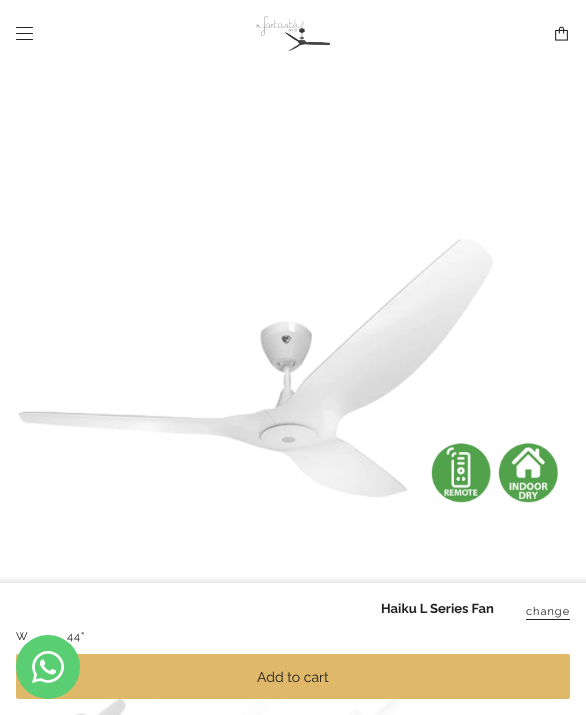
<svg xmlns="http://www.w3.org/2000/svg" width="586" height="715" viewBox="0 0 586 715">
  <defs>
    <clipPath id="clip1"><path d="M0 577h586v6H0z"/></clipPath>
  </defs>
  <rect width="100%" height="100%" fill="#fff"/>
  <rect x="16" y="27" width="17" height="1" rx="0.5" fill="#222"/>
  <rect x="16" y="33" width="17" height="1" rx="0.5" fill="#222"/>
  <rect x="16" y="39" width="17" height="1" rx="0.5" fill="#222"/>
  <image x="256" y="16" width="74" height="35" href="img/1.png"/>
  <image x="555" y="26" width="13" height="15" href="img/2.png"/>
  <image x="18" y="239" width="541" height="264" href="img/3.png"/>
  <image x="75" y="699" width="52" height="16" href="img/4.png"/>
  <path d="M158.5 666.5h128v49H158.5z" fill="none" stroke="#fcfcfc"/>
  <image x="242" y="699" width="27" height="16" href="img/5.png"/>
  <image x="348" y="699" width="52" height="16" href="img/6.png"/>
  <g clip-path="url(#clip1)">
    <path d="M-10 583h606v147H-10z" fill="#00000033" filter="blur(5px)"/>
  </g>
  <path d="M526 619h44v1H526z" fill="#222"/>
  <rect x="17" y="655" width="552" height="43" rx="1" fill="#dfb869" stroke="#dfb869" stroke-width="2"/>
  <text x="381" y="613" font-family="Raleway" font-size="13" font-weight="bold" fill="#222">Haiku L Series Fan</text>
  <g font-family="Raleway" font-size="11" letter-spacing="1" fill="#222">
    <text x="16" y="640">W</text>
    <text x="67" y="640">44"</text>
    <text x="526" y="615">change</text>
  </g>
  <text x="257" y="682" font-family="Raleway" font-size="14" fill="#222">Add to cart</text>
  <circle cx="48" cy="667" r="32" fill="#59ce72"/>
  <image x="32" y="651" width="32" height="32" href="img/7.png"/>
</svg>
